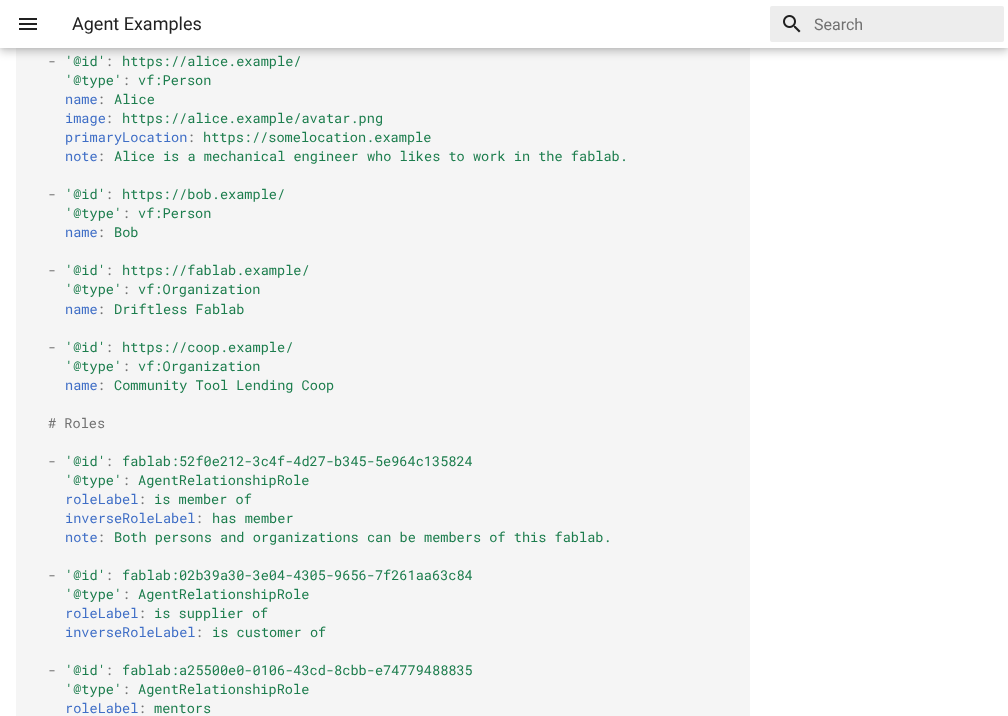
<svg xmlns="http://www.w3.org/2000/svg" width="1008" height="716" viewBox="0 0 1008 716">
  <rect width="100%" height="100%" fill="#fff"/>
  <path d="M16 48h734v668H16z" fill="#f5f5f5"/>
  <path d="M0 4h1008v48H0z" fill="#00000033" filter="blur(4px)"/>
  <path d="M0 0h1008v48H0z" fill="#0000001a" filter="blur(2px)"/>
  <path d="M0 0h1008v48H0z" fill="#fff"/>
  <image x="19" y="18" width="18" height="12" href="img/1.png"/>
  <rect x="770" y="6" width="234" height="36" rx="2" fill="#ededed"/>
  <image x="783" y="15" width="18" height="18" href="img/2.png"/>
  <text x="72" y="30" font-family="Roboto" font-size="18" fill="#212121">Agent Examples</text>
  <text x="814" y="30" font-family="Roboto" font-size="16" fill="#717171">Search</text>
  <text x="48" y="66" font-family="Roboto Mono" font-size="13.6" fill="#717171">-</text>
  <text x="65" y="66" font-family="Roboto Mono" font-size="13.6" fill="#1c7d4d">'@id'</text>
  <text x="105" y="66" font-family="Roboto Mono" font-size="13.6" fill="#717171">:</text>
  <g font-family="Roboto Mono" font-size="13.6" fill="#1c7d4d">
    <text x="122" y="66">https://alice.example/</text>
    <text x="65" y="85">'@type'</text>
  </g>
  <text x="122" y="85" font-family="Roboto Mono" font-size="13.6" fill="#717171">:</text>
  <text x="138" y="85" font-family="Roboto Mono" font-size="13.6" fill="#1c7d4d">vf:Person</text>
  <text x="65" y="104" font-family="Roboto Mono" font-size="13.6" fill="#3f6ec6">name</text>
  <text x="97" y="104" font-family="Roboto Mono" font-size="13.6" fill="#717171">:</text>
  <text x="114" y="104" font-family="Roboto Mono" font-size="13.6" fill="#1c7d4d">Alice</text>
  <text x="65" y="123" font-family="Roboto Mono" font-size="13.6" fill="#3f6ec6">image</text>
  <text x="105" y="123" font-family="Roboto Mono" font-size="13.6" fill="#717171">:</text>
  <text x="122" y="123" font-family="Roboto Mono" font-size="13.6" fill="#1c7d4d">https://alice.example/avatar.png</text>
  <text x="65" y="142" font-family="Roboto Mono" font-size="13.6" fill="#3f6ec6">primaryLocation</text>
  <text x="187" y="142" font-family="Roboto Mono" font-size="13.6" fill="#717171">:</text>
  <text x="203" y="142" font-family="Roboto Mono" font-size="13.6" fill="#1c7d4d">https://somelocation.example</text>
  <text x="65" y="161" font-family="Roboto Mono" font-size="13.6" fill="#3f6ec6">note</text>
  <text x="97" y="161" font-family="Roboto Mono" font-size="13.6" fill="#717171">:</text>
  <text x="114" y="161" font-family="Roboto Mono" font-size="13.6" fill="#1c7d4d">Alice is a mechanical engineer who likes to work in the fablab.</text>
  <text x="48" y="199" font-family="Roboto Mono" font-size="13.6" fill="#717171">-</text>
  <text x="65" y="199" font-family="Roboto Mono" font-size="13.6" fill="#1c7d4d">'@id'</text>
  <text x="105" y="199" font-family="Roboto Mono" font-size="13.6" fill="#717171">:</text>
  <g font-family="Roboto Mono" font-size="13.6" fill="#1c7d4d">
    <text x="122" y="199">https://bob.example/</text>
    <text x="65" y="218">'@type'</text>
  </g>
  <text x="122" y="218" font-family="Roboto Mono" font-size="13.6" fill="#717171">:</text>
  <text x="138" y="218" font-family="Roboto Mono" font-size="13.6" fill="#1c7d4d">vf:Person</text>
  <text x="65" y="237" font-family="Roboto Mono" font-size="13.6" fill="#3f6ec6">name</text>
  <text x="97" y="237" font-family="Roboto Mono" font-size="13.6" fill="#717171">:</text>
  <text x="114" y="237" font-family="Roboto Mono" font-size="13.6" fill="#1c7d4d">Bob</text>
  <text x="48" y="275" font-family="Roboto Mono" font-size="13.6" fill="#717171">-</text>
  <text x="65" y="275" font-family="Roboto Mono" font-size="13.6" fill="#1c7d4d">'@id'</text>
  <text x="105" y="275" font-family="Roboto Mono" font-size="13.6" fill="#717171">:</text>
  <g font-family="Roboto Mono" font-size="13.6" fill="#1c7d4d">
    <text x="122" y="275">https://fablab.example/</text>
    <text x="65" y="294">'@type'</text>
  </g>
  <text x="122" y="294" font-family="Roboto Mono" font-size="13.6" fill="#717171">:</text>
  <text x="138" y="294" font-family="Roboto Mono" font-size="13.6" fill="#1c7d4d">vf:Organization</text>
  <text x="65" y="314" font-family="Roboto Mono" font-size="13.6" fill="#3f6ec6">name</text>
  <text x="97" y="314" font-family="Roboto Mono" font-size="13.6" fill="#717171">:</text>
  <text x="114" y="314" font-family="Roboto Mono" font-size="13.6" fill="#1c7d4d">Driftless Fablab</text>
  <text x="48" y="352" font-family="Roboto Mono" font-size="13.6" fill="#717171">-</text>
  <text x="65" y="352" font-family="Roboto Mono" font-size="13.6" fill="#1c7d4d">'@id'</text>
  <text x="105" y="352" font-family="Roboto Mono" font-size="13.6" fill="#717171">:</text>
  <g font-family="Roboto Mono" font-size="13.6" fill="#1c7d4d">
    <text x="122" y="352">https://coop.example/</text>
    <text x="65" y="371">'@type'</text>
  </g>
  <text x="122" y="371" font-family="Roboto Mono" font-size="13.6" fill="#717171">:</text>
  <text x="138" y="371" font-family="Roboto Mono" font-size="13.6" fill="#1c7d4d">vf:Organization</text>
  <text x="65" y="390" font-family="Roboto Mono" font-size="13.6" fill="#3f6ec6">name</text>
  <text x="97" y="390" font-family="Roboto Mono" font-size="13.6" fill="#717171">:</text>
  <text x="114" y="390" font-family="Roboto Mono" font-size="13.6" fill="#1c7d4d">Community Tool Lending Coop</text>
  <g font-family="Roboto Mono" font-size="13.6" fill="#717171">
    <text x="48" y="428"># Roles</text>
    <text x="48" y="466">-</text>
  </g>
  <text x="65" y="466" font-family="Roboto Mono" font-size="13.6" fill="#1c7d4d">'@id'</text>
  <text x="105" y="466" font-family="Roboto Mono" font-size="13.6" fill="#717171">:</text>
  <g font-family="Roboto Mono" font-size="13.6" fill="#1c7d4d">
    <text x="122" y="466">fablab:52f0e212-3c4f-4d27-b345-5e964c135824</text>
    <text x="65" y="485">'@type'</text>
  </g>
  <text x="122" y="485" font-family="Roboto Mono" font-size="13.6" fill="#717171">:</text>
  <text x="138" y="485" font-family="Roboto Mono" font-size="13.6" fill="#1c7d4d">AgentRelationshipRole</text>
  <text x="65" y="504" font-family="Roboto Mono" font-size="13.6" fill="#3f6ec6">roleLabel</text>
  <text x="138" y="504" font-family="Roboto Mono" font-size="13.6" fill="#717171">:</text>
  <text x="154" y="504" font-family="Roboto Mono" font-size="13.6" fill="#1c7d4d">is member of</text>
  <text x="65" y="523" font-family="Roboto Mono" font-size="13.6" fill="#3f6ec6">inverseRoleLabel</text>
  <text x="195" y="523" font-family="Roboto Mono" font-size="13.6" fill="#717171">:</text>
  <text x="212" y="523" font-family="Roboto Mono" font-size="13.6" fill="#1c7d4d">has member</text>
  <text x="65" y="542" font-family="Roboto Mono" font-size="13.6" fill="#3f6ec6">note</text>
  <text x="97" y="542" font-family="Roboto Mono" font-size="13.6" fill="#717171">:</text>
  <text x="114" y="542" font-family="Roboto Mono" font-size="13.6" fill="#1c7d4d">Both persons and organizations can be members of this fablab.</text>
  <text x="48" y="580" font-family="Roboto Mono" font-size="13.6" fill="#717171">-</text>
  <text x="65" y="580" font-family="Roboto Mono" font-size="13.6" fill="#1c7d4d">'@id'</text>
  <text x="105" y="580" font-family="Roboto Mono" font-size="13.6" fill="#717171">:</text>
  <g font-family="Roboto Mono" font-size="13.6" fill="#1c7d4d">
    <text x="122" y="580">fablab:02b39a30-3e04-4305-9656-7f261aa63c84</text>
    <text x="65" y="599">'@type'</text>
  </g>
  <text x="122" y="599" font-family="Roboto Mono" font-size="13.6" fill="#717171">:</text>
  <text x="138" y="599" font-family="Roboto Mono" font-size="13.6" fill="#1c7d4d">AgentRelationshipRole</text>
  <text x="65" y="618" font-family="Roboto Mono" font-size="13.6" fill="#3f6ec6">roleLabel</text>
  <text x="138" y="618" font-family="Roboto Mono" font-size="13.6" fill="#717171">:</text>
  <text x="154" y="618" font-family="Roboto Mono" font-size="13.6" fill="#1c7d4d">is supplier of</text>
  <text x="65" y="637" font-family="Roboto Mono" font-size="13.6" fill="#3f6ec6">inverseRoleLabel</text>
  <text x="195" y="637" font-family="Roboto Mono" font-size="13.6" fill="#717171">:</text>
  <text x="212" y="637" font-family="Roboto Mono" font-size="13.6" fill="#1c7d4d">is customer of</text>
  <text x="48" y="675" font-family="Roboto Mono" font-size="13.6" fill="#717171">-</text>
  <text x="65" y="675" font-family="Roboto Mono" font-size="13.6" fill="#1c7d4d">'@id'</text>
  <text x="105" y="675" font-family="Roboto Mono" font-size="13.6" fill="#717171">:</text>
  <g font-family="Roboto Mono" font-size="13.6" fill="#1c7d4d">
    <text x="122" y="675">fablab:a25500e0-0106-43cd-8cbb-e74779488835</text>
    <text x="65" y="694">'@type'</text>
  </g>
  <text x="122" y="694" font-family="Roboto Mono" font-size="13.6" fill="#717171">:</text>
  <text x="138" y="694" font-family="Roboto Mono" font-size="13.6" fill="#1c7d4d">AgentRelationshipRole</text>
  <text x="65" y="713" font-family="Roboto Mono" font-size="13.6" fill="#3f6ec6">roleLabel</text>
  <text x="138" y="713" font-family="Roboto Mono" font-size="13.6" fill="#717171">:</text>
  <text x="154" y="713" font-family="Roboto Mono" font-size="13.6" fill="#1c7d4d">mentors</text>
</svg>
